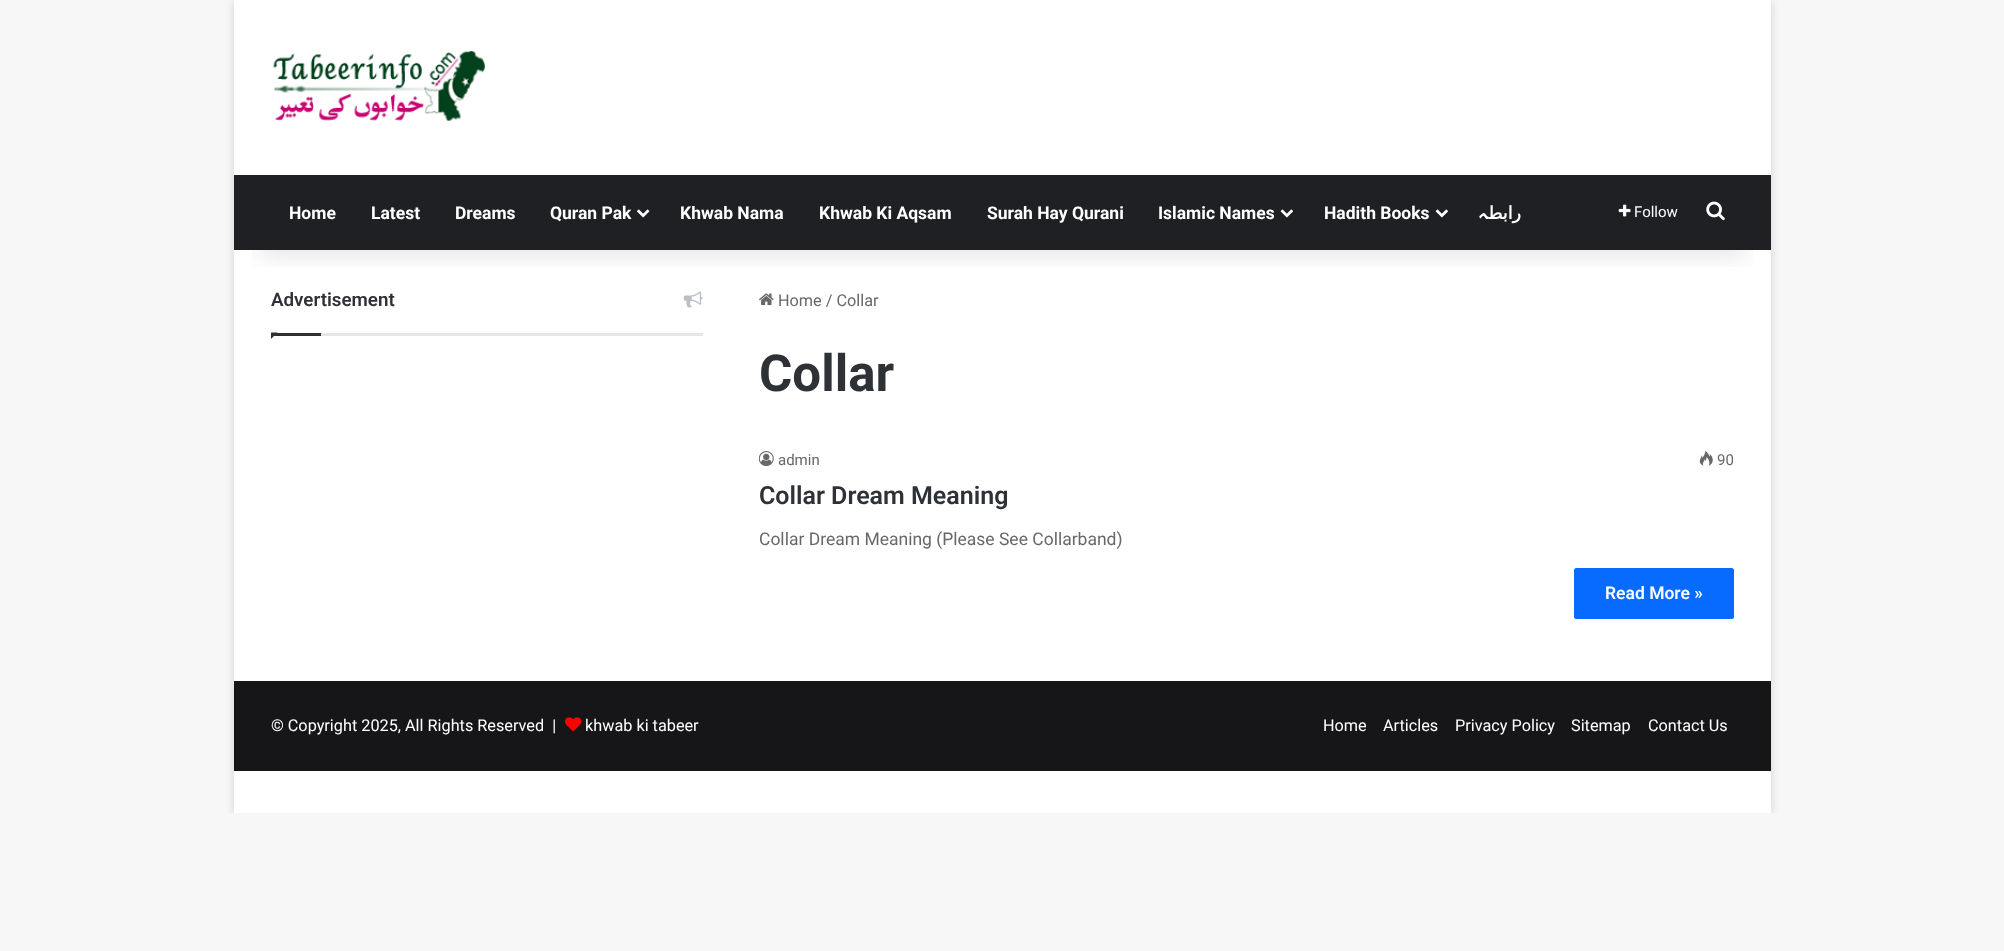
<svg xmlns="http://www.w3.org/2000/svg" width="2004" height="951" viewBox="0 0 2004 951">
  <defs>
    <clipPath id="clip1"><path d="M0 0h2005v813H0z"/></clipPath>
    <clipPath id="clip2"><path d="M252 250h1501v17H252z"/></clipPath>
  </defs>
  <rect width="100%" height="100%" fill="#f7f7f7"/>
  <g clip-path="url(#clip1)">
    <path d="M234 1h1537v813H234z" fill="#ababab80" filter="blur(4.5px)"/>
  </g>
  <path d="M234 0h1537v813H234z" fill="#fff"/>
  <image x="683" y="291" width="20" height="17" href="img/6.png"/>
  <image x="759" y="293" width="15" height="13" href="img/7.png"/>
  <g clip-path="url(#clip2)">
    <path d="M259 56h1487v200H259z" fill="#0000001a" filter="blur(12.5px)"/>
  </g>
  <image x="273" y="51" width="212" height="70" href="img/1.png"/>
  <path d="M234 175h1537v75H234z" fill="#1f2024"/>
  <image x="637" y="209" width="13" height="9" href="img/2.png"/>
  <image x="1280" y="209" width="13" height="9" href="img/3.png"/>
  <image x="1435" y="209" width="13" height="9" href="img/3.png"/>
  <image x="1618" y="204" width="13" height="13" href="img/4.png"/>
  <image x="1706" y="201" width="19" height="20" href="img/5.png"/>
  <path d="M321 333h382v3H321z" fill="#e6e6e6"/>
  <path d="M271 332.5H277.5L271 339Z" fill="#2e3136"/>
  <path d="M271 333h50v3H271z" fill="#2e3136"/>
  <image x="759" y="451" width="15" height="16" href="img/8.png"/>
  <image x="1699" y="451" width="14" height="15" href="img/9.png"/>
  <rect x="1574" y="568" width="160" height="51" rx="2.5" fill="#086bff"/>
  <path d="M234 681h1537v90H234z" fill="#161619"/>
  <image x="565" y="717" width="17" height="15" href="img/10.png"/>
  <g font-family="Roboto" font-size="17.5" font-weight="bold" fill="#fff">
    <text x="289" y="219">Home</text>
    <text x="371" y="219">Latest</text>
    <text x="455" y="219">Dreams</text>
    <text x="550" y="219">Quran Pak</text>
    <text x="680" y="219">Khwab Nama</text>
    <text x="819" y="219">Khwab Ki Aqsam</text>
    <text x="987" y="219">Surah Hay Qurani</text>
    <text x="1158" y="219">Islamic Names</text>
    <text x="1324" y="219">Hadith Books</text>
  </g>
  <text x="1488" y="219" font-family="Cascadia Code" font-size="17.5" font-weight="bold" direction="rtl" fill="#fff">‍ہ</text>
  <text x="1521" y="219" font-family="DejaVu Sans" font-size="17.5" font-weight="bold" direction="rtl" fill="#fff">رابط‍</text>
  <text x="1634" y="217" font-family="Roboto" font-size="15" fill="#fff">Follow</text>
  <text x="271" y="306" font-family="Roboto" font-size="18.75" font-weight="600" fill="#2e3136">Advertisement</text>
  <text x="778" y="306" font-family="Roboto" font-size="16.25" fill="#686868">Home / Collar</text>
  <text x="759" y="391" font-family="Roboto" font-size="51" font-weight="bold" fill="#2e3136">Collar</text>
  <g font-family="Roboto" font-size="15" fill="#686868">
    <text x="778" y="465">admin</text>
    <text x="1717" y="465">90</text>
  </g>
  <text x="759" y="504" font-family="Roboto" font-size="25" font-weight="600" fill="#2e3136">Collar Dream Meaning</text>
  <text x="759" y="545" font-family="Roboto" font-size="17.5" fill="#686868">Collar Dream Meaning (Please See Collarband)</text>
  <text x="1605" y="599" font-family="Roboto" font-size="17.5" font-weight="600" fill="#fff">Read More »</text>
  <g font-family="Roboto" font-size="16.25" fill="#fff">
    <text x="271" y="731" xml:space="preserve">© Copyright 2025, All Rights Reserved  |</text>
    <text x="585" y="731">khwab ki tabeer</text>
    <text x="1323" y="731">Home</text>
    <text x="1383" y="731">Articles</text>
    <text x="1455" y="731">Privacy Policy</text>
    <text x="1571" y="731">Sitemap</text>
    <text x="1648" y="731">Contact Us</text>
  </g>
</svg>
